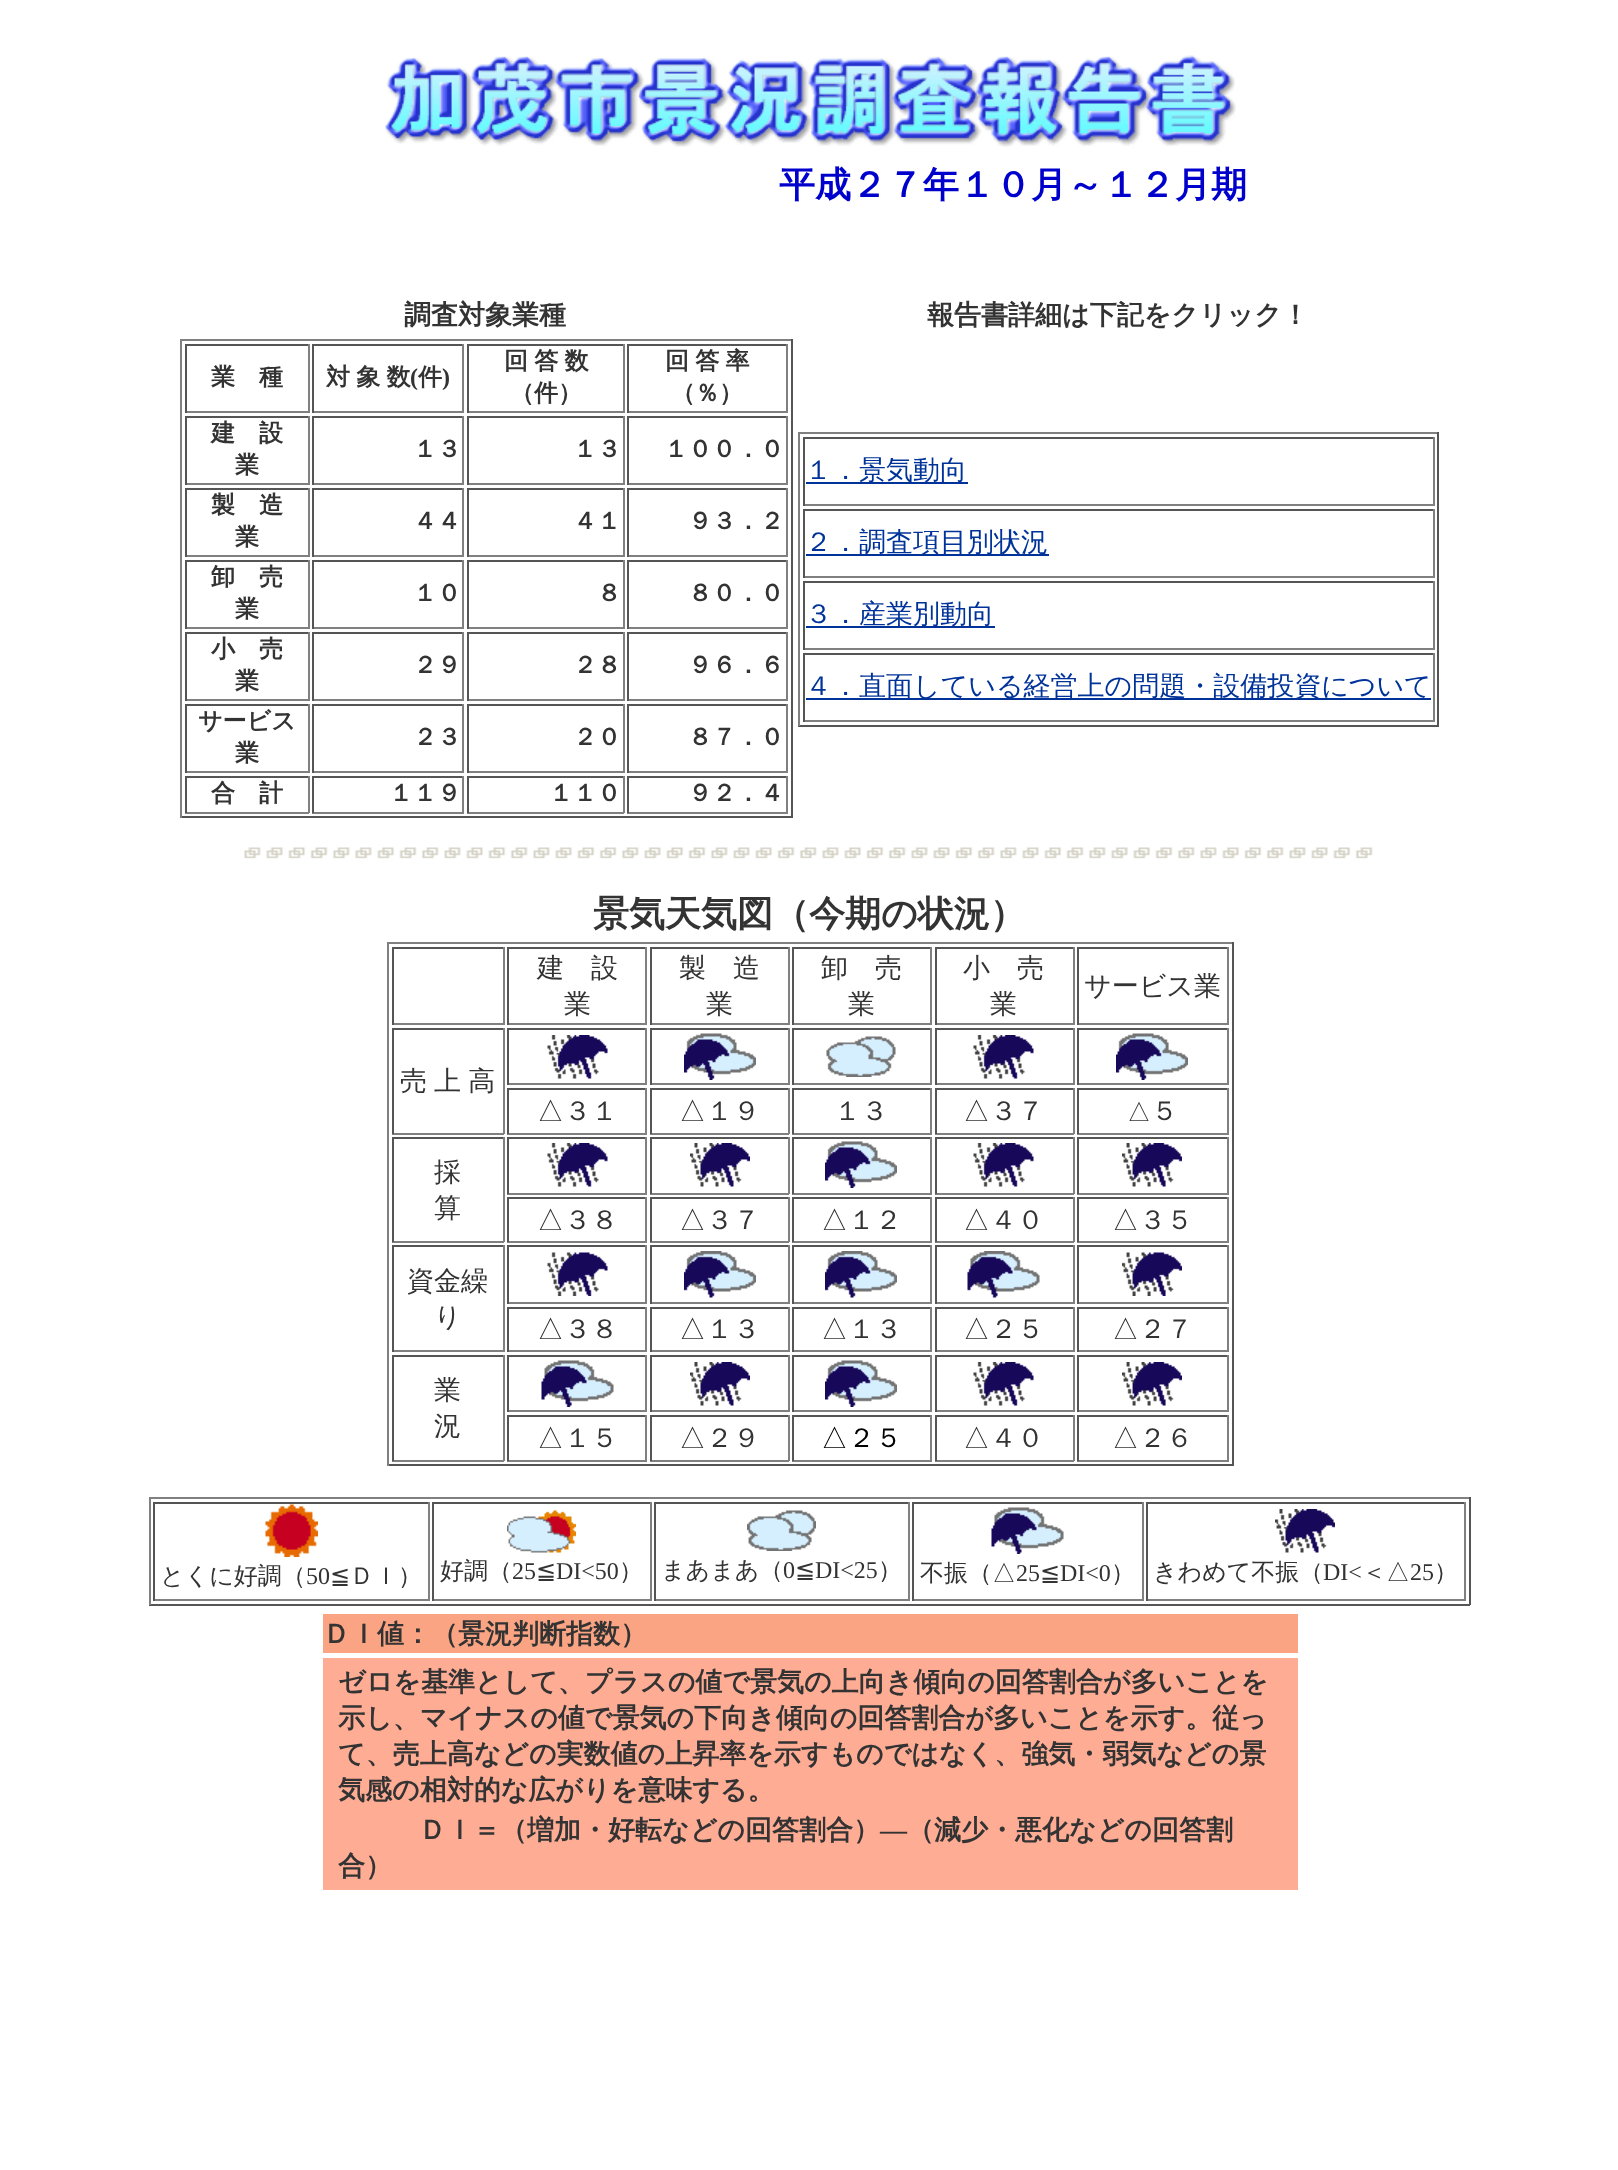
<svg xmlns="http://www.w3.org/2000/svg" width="1618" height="2170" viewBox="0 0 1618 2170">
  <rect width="100%" height="100%" fill="#fff"/>
  <image x="385" y="55" width="851" height="92" href="img/1.png"/>
  <path d="M180 339h612v2H180z" fill="#808080"/>
  <path d="M791 339h2v479H791z" fill="#555"/>
  <path d="M180 816h612v2H180z" fill="#555"/>
  <path d="M180 339h2v479H180z" fill="#808080"/>
  <path d="M185 344h124v2H185z" fill="#555"/>
  <path d="M308 344h2v69H308z" fill="#808080"/>
  <path d="M185 411h124v2H185z" fill="#808080"/>
  <path d="M185 344h2v69H185z" fill="#555"/>
  <path d="M312 344h152v2H312z" fill="#555"/>
  <path d="M462 344h2v69H462z" fill="#808080"/>
  <path d="M312 411h152v2H312z" fill="#808080"/>
  <path d="M312 344h2v69H312z" fill="#555"/>
  <path d="M467 344h157v2H467z" fill="#555"/>
  <path d="M623 344h2v69H623z" fill="#808080"/>
  <path d="M467 411h157v2H467z" fill="#808080"/>
  <path d="M467 344h2v69H467z" fill="#555"/>
  <path d="M627 344h161v2H627z" fill="#555"/>
  <path d="M786 344h2v69H786z" fill="#808080"/>
  <path d="M627 411h161v2H627z" fill="#808080"/>
  <path d="M627 344h2v69H627z" fill="#555"/>
  <path d="M185 416h124v2H185z" fill="#555"/>
  <path d="M308 416h2v69H308z" fill="#808080"/>
  <path d="M185 483h124v2H185z" fill="#808080"/>
  <path d="M185 416h2v69H185z" fill="#555"/>
  <path d="M312 416h152v2H312z" fill="#555"/>
  <path d="M462 416h2v69H462z" fill="#808080"/>
  <path d="M312 483h152v2H312z" fill="#808080"/>
  <path d="M312 416h2v69H312z" fill="#555"/>
  <path d="M467 416h157v2H467z" fill="#555"/>
  <path d="M623 416h2v69H623z" fill="#808080"/>
  <path d="M467 483h157v2H467z" fill="#808080"/>
  <path d="M467 416h2v69H467z" fill="#555"/>
  <path d="M627 416h161v2H627z" fill="#555"/>
  <path d="M786 416h2v69H786z" fill="#808080"/>
  <path d="M627 483h161v2H627z" fill="#808080"/>
  <path d="M627 416h2v69H627z" fill="#555"/>
  <path d="M185 488h124v2H185z" fill="#555"/>
  <path d="M308 488h2v69H308z" fill="#808080"/>
  <path d="M185 555h124v2H185z" fill="#808080"/>
  <path d="M185 488h2v69H185z" fill="#555"/>
  <path d="M312 488h152v2H312z" fill="#555"/>
  <path d="M462 488h2v69H462z" fill="#808080"/>
  <path d="M312 555h152v2H312z" fill="#808080"/>
  <path d="M312 488h2v69H312z" fill="#555"/>
  <path d="M467 488h157v2H467z" fill="#555"/>
  <path d="M623 488h2v69H623z" fill="#808080"/>
  <path d="M467 555h157v2H467z" fill="#808080"/>
  <path d="M467 488h2v69H467z" fill="#555"/>
  <path d="M627 488h161v2H627z" fill="#555"/>
  <path d="M786 488h2v69H786z" fill="#808080"/>
  <path d="M627 555h161v2H627z" fill="#808080"/>
  <path d="M627 488h2v69H627z" fill="#555"/>
  <path d="M185 560h124v2H185z" fill="#555"/>
  <path d="M308 560h2v69H308z" fill="#808080"/>
  <path d="M185 627h124v2H185z" fill="#808080"/>
  <path d="M185 560h2v69H185z" fill="#555"/>
  <path d="M312 560h152v2H312z" fill="#555"/>
  <path d="M462 560h2v69H462z" fill="#808080"/>
  <path d="M312 627h152v2H312z" fill="#808080"/>
  <path d="M312 560h2v69H312z" fill="#555"/>
  <path d="M467 560h157v2H467z" fill="#555"/>
  <path d="M623 560h2v69H623z" fill="#808080"/>
  <path d="M467 627h157v2H467z" fill="#808080"/>
  <path d="M467 560h2v69H467z" fill="#555"/>
  <path d="M627 560h161v2H627z" fill="#555"/>
  <path d="M786 560h2v69H786z" fill="#808080"/>
  <path d="M627 627h161v2H627z" fill="#808080"/>
  <path d="M627 560h2v69H627z" fill="#555"/>
  <path d="M185 632h124v2H185z" fill="#555"/>
  <path d="M308 632h2v69H308z" fill="#808080"/>
  <path d="M185 699h124v2H185z" fill="#808080"/>
  <path d="M185 632h2v69H185z" fill="#555"/>
  <path d="M312 632h152v2H312z" fill="#555"/>
  <path d="M462 632h2v69H462z" fill="#808080"/>
  <path d="M312 699h152v2H312z" fill="#808080"/>
  <path d="M312 632h2v69H312z" fill="#555"/>
  <path d="M467 632h157v2H467z" fill="#555"/>
  <path d="M623 632h2v69H623z" fill="#808080"/>
  <path d="M467 699h157v2H467z" fill="#808080"/>
  <path d="M467 632h2v69H467z" fill="#555"/>
  <path d="M627 632h161v2H627z" fill="#555"/>
  <path d="M786 632h2v69H786z" fill="#808080"/>
  <path d="M627 699h161v2H627z" fill="#808080"/>
  <path d="M627 632h2v69H627z" fill="#555"/>
  <path d="M185 704h124v2H185z" fill="#555"/>
  <path d="M308 704h2v69H308z" fill="#808080"/>
  <path d="M185 771h124v2H185z" fill="#808080"/>
  <path d="M185 704h2v69H185z" fill="#555"/>
  <path d="M312 704h152v2H312z" fill="#555"/>
  <path d="M462 704h2v69H462z" fill="#808080"/>
  <path d="M312 771h152v2H312z" fill="#808080"/>
  <path d="M312 704h2v69H312z" fill="#555"/>
  <path d="M467 704h157v2H467z" fill="#555"/>
  <path d="M623 704h2v69H623z" fill="#808080"/>
  <path d="M467 771h157v2H467z" fill="#808080"/>
  <path d="M467 704h2v69H467z" fill="#555"/>
  <path d="M627 704h161v2H627z" fill="#555"/>
  <path d="M786 704h2v69H786z" fill="#808080"/>
  <path d="M627 771h161v2H627z" fill="#808080"/>
  <path d="M627 704h2v69H627z" fill="#555"/>
  <path d="M185 776h124v2H185z" fill="#555"/>
  <path d="M308 776h2v37H308z" fill="#808080"/>
  <path d="M185 812h124v2H185z" fill="#808080"/>
  <path d="M185 776h2v37H185z" fill="#555"/>
  <path d="M312 776h152v2H312z" fill="#555"/>
  <path d="M462 776h2v37H462z" fill="#808080"/>
  <path d="M312 812h152v2H312z" fill="#808080"/>
  <path d="M312 776h2v37H312z" fill="#555"/>
  <path d="M467 776h157v2H467z" fill="#555"/>
  <path d="M623 776h2v37H623z" fill="#808080"/>
  <path d="M467 812h157v2H467z" fill="#808080"/>
  <path d="M467 776h2v37H467z" fill="#555"/>
  <path d="M627 776h161v2H627z" fill="#555"/>
  <path d="M786 776h2v37H786z" fill="#808080"/>
  <path d="M627 812h161v2H627z" fill="#808080"/>
  <path d="M627 776h2v37H627z" fill="#555"/>
  <path d="M798 432h641v2H798z" fill="#808080"/>
  <path d="M1437 432h2v294H1437z" fill="#555"/>
  <path d="M798 725h641v2H798z" fill="#555"/>
  <path d="M798 432h2v294H798z" fill="#808080"/>
  <path d="M803 437h631v2H803z" fill="#555"/>
  <path d="M1433 437h2v69H1433z" fill="#808080"/>
  <path d="M803 504h631v2H803z" fill="#808080"/>
  <path d="M803 437h2v69H803z" fill="#555"/>
  <path d="M806 482h162v2H806z" fill="#039"/>
  <path d="M803 509h631v2H803z" fill="#555"/>
  <path d="M1433 509h2v69H1433z" fill="#808080"/>
  <path d="M803 576h631v2H803z" fill="#808080"/>
  <path d="M803 509h2v69H803z" fill="#555"/>
  <path d="M806 554h243v2H806z" fill="#039"/>
  <path d="M803 581h631v2H803z" fill="#555"/>
  <path d="M1433 581h2v69H1433z" fill="#808080"/>
  <path d="M803 648h631v2H803z" fill="#808080"/>
  <path d="M803 581h2v69H803z" fill="#555"/>
  <path d="M806 626h189v2H806z" fill="#039"/>
  <path d="M803 653h631v2H803z" fill="#555"/>
  <path d="M1433 653h2v69H1433z" fill="#808080"/>
  <path d="M803 720h631v2H803z" fill="#808080"/>
  <path d="M803 653h2v69H803z" fill="#555"/>
  <path d="M806 698h625v2H806z" fill="#039"/>
  <image x="244" y="847" width="1129" height="12" href="img/2.png"/>
  <path d="M387 942h846v2H387z" fill="#808080"/>
  <path d="M1232 942h2v524H1232z" fill="#555"/>
  <path d="M387 1464h846v2H387z" fill="#555"/>
  <path d="M387 942h2v524H387z" fill="#808080"/>
  <path d="M392 947h112v2H392z" fill="#555"/>
  <path d="M503 947h2v78H503z" fill="#808080"/>
  <path d="M392 1023h112v2H392z" fill="#808080"/>
  <path d="M392 947h2v78H392z" fill="#555"/>
  <path d="M507 947h140v2H507z" fill="#555"/>
  <path d="M645 947h2v78H645z" fill="#808080"/>
  <path d="M507 1023h140v2H507z" fill="#808080"/>
  <path d="M507 947h2v78H507z" fill="#555"/>
  <path d="M650 947h139v2H650z" fill="#555"/>
  <path d="M788 947h2v78H788z" fill="#808080"/>
  <path d="M650 1023h139v2H650z" fill="#808080"/>
  <path d="M650 947h2v78H650z" fill="#555"/>
  <path d="M792 947h140v2H792z" fill="#555"/>
  <path d="M930 947h2v78H930z" fill="#808080"/>
  <path d="M792 1023h140v2H792z" fill="#808080"/>
  <path d="M792 947h2v78H792z" fill="#555"/>
  <path d="M935 947h139v2H935z" fill="#555"/>
  <path d="M1073 947h2v78H1073z" fill="#808080"/>
  <path d="M935 1023h139v2H935z" fill="#808080"/>
  <path d="M935 947h2v78H935z" fill="#555"/>
  <path d="M1077 947h152v2H1077z" fill="#555"/>
  <path d="M1227 947h2v78H1227z" fill="#808080"/>
  <path d="M1077 1023h152v2H1077z" fill="#808080"/>
  <path d="M1077 947h2v78H1077z" fill="#555"/>
  <path d="M392 1028h112v2H392z" fill="#555"/>
  <path d="M503 1028h2v106H503z" fill="#808080"/>
  <path d="M392 1133h112v2H392z" fill="#808080"/>
  <path d="M392 1028h2v106H392z" fill="#555"/>
  <path d="M507 1028h140v2H507z" fill="#555"/>
  <path d="M645 1028h2v57H645z" fill="#808080"/>
  <path d="M507 1083h140v2H507z" fill="#808080"/>
  <path d="M507 1028h2v57H507z" fill="#555"/>
  <image x="547" y="1035" width="61" height="44" href="img/3.png"/>
  <path d="M650 1028h139v2H650z" fill="#555"/>
  <path d="M788 1028h2v57H788z" fill="#808080"/>
  <path d="M650 1083h139v2H650z" fill="#808080"/>
  <path d="M650 1028h2v57H650z" fill="#555"/>
  <image x="684" y="1033" width="72" height="47" href="img/4.png"/>
  <path d="M792 1028h140v2H792z" fill="#555"/>
  <path d="M930 1028h2v57H930z" fill="#808080"/>
  <path d="M792 1083h140v2H792z" fill="#808080"/>
  <path d="M792 1028h2v57H792z" fill="#555"/>
  <image x="826" y="1036" width="70" height="41" href="img/5.png"/>
  <path d="M935 1028h139v2H935z" fill="#555"/>
  <path d="M1073 1028h2v57H1073z" fill="#808080"/>
  <path d="M935 1083h139v2H935z" fill="#808080"/>
  <path d="M935 1028h2v57H935z" fill="#555"/>
  <image x="973" y="1035" width="61" height="44" href="img/6.png"/>
  <path d="M1077 1028h152v2H1077z" fill="#555"/>
  <path d="M1227 1028h2v57H1227z" fill="#808080"/>
  <path d="M1077 1083h152v2H1077z" fill="#808080"/>
  <path d="M1077 1028h2v57H1077z" fill="#555"/>
  <image x="1116" y="1033" width="72" height="47" href="img/7.png"/>
  <path d="M507 1088h140v2H507z" fill="#555"/>
  <path d="M645 1088h2v46H645z" fill="#808080"/>
  <path d="M507 1133h140v2H507z" fill="#808080"/>
  <path d="M507 1088h2v46H507z" fill="#555"/>
  <path d="M650 1088h139v2H650z" fill="#555"/>
  <path d="M788 1088h2v46H788z" fill="#808080"/>
  <path d="M650 1133h139v2H650z" fill="#808080"/>
  <path d="M650 1088h2v46H650z" fill="#555"/>
  <path d="M792 1088h140v2H792z" fill="#555"/>
  <path d="M930 1088h2v46H930z" fill="#808080"/>
  <path d="M792 1133h140v2H792z" fill="#808080"/>
  <path d="M792 1088h2v46H792z" fill="#555"/>
  <path d="M935 1088h139v2H935z" fill="#555"/>
  <path d="M1073 1088h2v46H1073z" fill="#808080"/>
  <path d="M935 1133h139v2H935z" fill="#808080"/>
  <path d="M935 1088h2v46H935z" fill="#555"/>
  <path d="M1077 1088h152v2H1077z" fill="#555"/>
  <path d="M1227 1088h2v46H1227z" fill="#808080"/>
  <path d="M1077 1133h152v2H1077z" fill="#808080"/>
  <path d="M1077 1088h2v46H1077z" fill="#555"/>
  <path d="M392 1137h112v2H392z" fill="#555"/>
  <path d="M503 1137h2v105H503z" fill="#808080"/>
  <path d="M392 1241h112v2H392z" fill="#808080"/>
  <path d="M392 1137h2v105H392z" fill="#555"/>
  <path d="M507 1137h140v2H507z" fill="#555"/>
  <path d="M645 1137h2v57H645z" fill="#808080"/>
  <path d="M507 1193h140v2H507z" fill="#808080"/>
  <path d="M507 1137h2v57H507z" fill="#555"/>
  <image x="547" y="1143" width="61" height="44" href="img/3.png"/>
  <path d="M650 1137h139v2H650z" fill="#555"/>
  <path d="M788 1137h2v57H788z" fill="#808080"/>
  <path d="M650 1193h139v2H650z" fill="#808080"/>
  <path d="M650 1137h2v57H650z" fill="#555"/>
  <image x="690" y="1143" width="60" height="44" href="img/8.png"/>
  <path d="M792 1137h140v2H792z" fill="#555"/>
  <path d="M930 1137h2v57H930z" fill="#808080"/>
  <path d="M792 1193h140v2H792z" fill="#808080"/>
  <path d="M792 1137h2v57H792z" fill="#555"/>
  <image x="825" y="1141" width="72" height="47" href="img/4.png"/>
  <path d="M935 1137h139v2H935z" fill="#555"/>
  <path d="M1073 1137h2v57H1073z" fill="#808080"/>
  <path d="M935 1193h139v2H935z" fill="#808080"/>
  <path d="M935 1137h2v57H935z" fill="#555"/>
  <image x="973" y="1143" width="61" height="44" href="img/6.png"/>
  <path d="M1077 1137h152v2H1077z" fill="#555"/>
  <path d="M1227 1137h2v57H1227z" fill="#808080"/>
  <path d="M1077 1193h152v2H1077z" fill="#808080"/>
  <path d="M1077 1137h2v57H1077z" fill="#555"/>
  <image x="1122" y="1143" width="60" height="44" href="img/9.png"/>
  <path d="M507 1197h140v2H507z" fill="#555"/>
  <path d="M645 1197h2v45H645z" fill="#808080"/>
  <path d="M507 1241h140v2H507z" fill="#808080"/>
  <path d="M507 1197h2v45H507z" fill="#555"/>
  <path d="M650 1197h139v2H650z" fill="#555"/>
  <path d="M788 1197h2v45H788z" fill="#808080"/>
  <path d="M650 1241h139v2H650z" fill="#808080"/>
  <path d="M650 1197h2v45H650z" fill="#555"/>
  <path d="M792 1197h140v2H792z" fill="#555"/>
  <path d="M930 1197h2v45H930z" fill="#808080"/>
  <path d="M792 1241h140v2H792z" fill="#808080"/>
  <path d="M792 1197h2v45H792z" fill="#555"/>
  <path d="M935 1197h139v2H935z" fill="#555"/>
  <path d="M1073 1197h2v45H1073z" fill="#808080"/>
  <path d="M935 1241h139v2H935z" fill="#808080"/>
  <path d="M935 1197h2v45H935z" fill="#555"/>
  <path d="M1077 1197h152v2H1077z" fill="#555"/>
  <path d="M1227 1197h2v45H1227z" fill="#808080"/>
  <path d="M1077 1241h152v2H1077z" fill="#808080"/>
  <path d="M1077 1197h2v45H1077z" fill="#555"/>
  <path d="M392 1245h112v2H392z" fill="#555"/>
  <path d="M503 1245h2v107H503z" fill="#808080"/>
  <path d="M392 1350h112v2H392z" fill="#808080"/>
  <path d="M392 1245h2v107H392z" fill="#555"/>
  <path d="M507 1245h140v2H507z" fill="#555"/>
  <path d="M645 1245h2v59H645z" fill="#808080"/>
  <path d="M507 1302h140v2H507z" fill="#808080"/>
  <path d="M507 1245h2v59H507z" fill="#555"/>
  <image x="547" y="1252" width="61" height="44" href="img/10.png"/>
  <path d="M650 1245h139v2H650z" fill="#555"/>
  <path d="M788 1245h2v59H788z" fill="#808080"/>
  <path d="M650 1302h139v2H650z" fill="#808080"/>
  <path d="M650 1245h2v59H650z" fill="#555"/>
  <image x="684" y="1251" width="72" height="47" href="img/11.png"/>
  <path d="M792 1245h140v2H792z" fill="#555"/>
  <path d="M930 1245h2v59H930z" fill="#808080"/>
  <path d="M792 1302h140v2H792z" fill="#808080"/>
  <path d="M792 1245h2v59H792z" fill="#555"/>
  <image x="825" y="1251" width="72" height="47" href="img/11.png"/>
  <path d="M935 1245h139v2H935z" fill="#555"/>
  <path d="M1073 1245h2v59H1073z" fill="#808080"/>
  <path d="M935 1302h139v2H935z" fill="#808080"/>
  <path d="M935 1245h2v59H935z" fill="#555"/>
  <image x="967" y="1251" width="73" height="47" href="img/12.png"/>
  <path d="M1077 1245h152v2H1077z" fill="#555"/>
  <path d="M1227 1245h2v59H1227z" fill="#808080"/>
  <path d="M1077 1302h152v2H1077z" fill="#808080"/>
  <path d="M1077 1245h2v59H1077z" fill="#555"/>
  <image x="1122" y="1252" width="60" height="44" href="img/13.png"/>
  <path d="M507 1307h140v2H507z" fill="#555"/>
  <path d="M645 1307h2v45H645z" fill="#808080"/>
  <path d="M507 1350h140v2H507z" fill="#808080"/>
  <path d="M507 1307h2v45H507z" fill="#555"/>
  <path d="M650 1307h139v2H650z" fill="#555"/>
  <path d="M788 1307h2v45H788z" fill="#808080"/>
  <path d="M650 1350h139v2H650z" fill="#808080"/>
  <path d="M650 1307h2v45H650z" fill="#555"/>
  <path d="M792 1307h140v2H792z" fill="#555"/>
  <path d="M930 1307h2v45H930z" fill="#808080"/>
  <path d="M792 1350h140v2H792z" fill="#808080"/>
  <path d="M792 1307h2v45H792z" fill="#555"/>
  <path d="M935 1307h139v2H935z" fill="#555"/>
  <path d="M1073 1307h2v45H1073z" fill="#808080"/>
  <path d="M935 1350h139v2H935z" fill="#808080"/>
  <path d="M935 1307h2v45H935z" fill="#555"/>
  <path d="M1077 1307h152v2H1077z" fill="#555"/>
  <path d="M1227 1307h2v45H1227z" fill="#808080"/>
  <path d="M1077 1350h152v2H1077z" fill="#808080"/>
  <path d="M1077 1307h2v45H1077z" fill="#555"/>
  <path d="M392 1355h112v2H392z" fill="#555"/>
  <path d="M503 1355h2v106H503z" fill="#808080"/>
  <path d="M392 1460h112v2H392z" fill="#808080"/>
  <path d="M392 1355h2v106H392z" fill="#555"/>
  <path d="M507 1355h140v2H507z" fill="#555"/>
  <path d="M645 1355h2v57H645z" fill="#808080"/>
  <path d="M507 1410h140v2H507z" fill="#808080"/>
  <path d="M507 1355h2v57H507z" fill="#555"/>
  <image x="541" y="1360" width="73" height="47" href="img/14.png"/>
  <path d="M650 1355h139v2H650z" fill="#555"/>
  <path d="M788 1355h2v57H788z" fill="#808080"/>
  <path d="M650 1410h139v2H650z" fill="#808080"/>
  <path d="M650 1355h2v57H650z" fill="#555"/>
  <image x="690" y="1362" width="60" height="44" href="img/8.png"/>
  <path d="M792 1355h140v2H792z" fill="#555"/>
  <path d="M930 1355h2v57H930z" fill="#808080"/>
  <path d="M792 1410h140v2H792z" fill="#808080"/>
  <path d="M792 1355h2v57H792z" fill="#555"/>
  <image x="825" y="1360" width="72" height="47" href="img/4.png"/>
  <path d="M935 1355h139v2H935z" fill="#555"/>
  <path d="M1073 1355h2v57H1073z" fill="#808080"/>
  <path d="M935 1410h139v2H935z" fill="#808080"/>
  <path d="M935 1355h2v57H935z" fill="#555"/>
  <image x="973" y="1362" width="61" height="44" href="img/6.png"/>
  <path d="M1077 1355h152v2H1077z" fill="#555"/>
  <path d="M1227 1355h2v57H1227z" fill="#808080"/>
  <path d="M1077 1410h152v2H1077z" fill="#808080"/>
  <path d="M1077 1355h2v57H1077z" fill="#555"/>
  <image x="1122" y="1362" width="60" height="44" href="img/9.png"/>
  <path d="M507 1415h140v2H507z" fill="#555"/>
  <path d="M645 1415h2v46H645z" fill="#808080"/>
  <path d="M507 1460h140v2H507z" fill="#808080"/>
  <path d="M507 1415h2v46H507z" fill="#555"/>
  <path d="M650 1415h139v2H650z" fill="#555"/>
  <path d="M788 1415h2v46H788z" fill="#808080"/>
  <path d="M650 1460h139v2H650z" fill="#808080"/>
  <path d="M650 1415h2v46H650z" fill="#555"/>
  <path d="M792 1415h140v2H792z" fill="#555"/>
  <path d="M930 1415h2v46H930z" fill="#808080"/>
  <path d="M792 1460h140v2H792z" fill="#808080"/>
  <path d="M792 1415h2v46H792z" fill="#555"/>
  <path d="M935 1415h139v2H935z" fill="#555"/>
  <path d="M1073 1415h2v46H1073z" fill="#808080"/>
  <path d="M935 1460h139v2H935z" fill="#808080"/>
  <path d="M935 1415h2v46H935z" fill="#555"/>
  <path d="M1077 1415h152v2H1077z" fill="#555"/>
  <path d="M1227 1415h2v46H1227z" fill="#808080"/>
  <path d="M1077 1460h152v2H1077z" fill="#808080"/>
  <path d="M1077 1415h2v46H1077z" fill="#555"/>
  <path d="M149 1497h1321v2H149z" fill="#808080"/>
  <path d="M1469 1497h2v108H1469z" fill="#555"/>
  <path d="M149 1604h1321v2H149z" fill="#555"/>
  <path d="M149 1497h2v108H149z" fill="#808080"/>
  <path d="M153 1502h276v2H153z" fill="#555"/>
  <path d="M428 1502h2v99H428z" fill="#808080"/>
  <path d="M153 1599h276v2H153z" fill="#808080"/>
  <path d="M153 1502h2v99H153z" fill="#555"/>
  <image x="265" y="1504" width="53" height="53" href="img/15.png"/>
  <path d="M432 1502h219v2H432z" fill="#555"/>
  <path d="M650 1502h2v99H650z" fill="#808080"/>
  <path d="M432 1599h219v2H432z" fill="#808080"/>
  <path d="M432 1502h2v99H432z" fill="#555"/>
  <image x="507" y="1510" width="69" height="43" href="img/16.png"/>
  <path d="M654 1502h255v2H654z" fill="#555"/>
  <path d="M908 1502h2v99H908z" fill="#808080"/>
  <path d="M654 1599h255v2H654z" fill="#808080"/>
  <path d="M654 1502h2v99H654z" fill="#555"/>
  <image x="747" y="1510" width="69" height="41" href="img/17.png"/>
  <path d="M912 1502h231v2H912z" fill="#555"/>
  <path d="M1142 1502h2v99H1142z" fill="#808080"/>
  <path d="M912 1599h231v2H912z" fill="#808080"/>
  <path d="M912 1502h2v99H912z" fill="#555"/>
  <image x="991" y="1507" width="73" height="47" href="img/18.png"/>
  <path d="M1146 1502h320v2H1146z" fill="#555"/>
  <path d="M1464 1502h2v99H1464z" fill="#808080"/>
  <path d="M1146 1599h320v2H1146z" fill="#808080"/>
  <path d="M1146 1502h2v99H1146z" fill="#555"/>
  <image x="1275" y="1509" width="60" height="44" href="img/19.png"/>
  <path d="M323 1614h975v39H323z" fill="#faa483"/>
  <path d="M323 1658h975v232H323z" fill="#feac94"/>
  <text x="779" y="197" font-family="WenQuanYi Zen Hei" font-size="36" font-weight="bold" fill="#00c">平成２７年１０月～１２月期</text>
  <g font-family="WenQuanYi Zen Hei" font-size="27" font-weight="bold" fill="#333">
    <text x="404" y="324">調査対象業種</text>
    <text x="927" y="324">報告書詳細は下記をクリック！</text>
  </g>
  <g font-family="WenQuanYi Zen Hei" font-size="24" font-weight="bold" fill="#333">
    <text x="211" y="385">業　種</text>
    <text x="326" y="385" word-spacing="-1">対 象 数</text>
  </g>
  <text x="410" y="385" font-family="Liberation Serif" font-size="24" font-weight="bold" fill="#333">(</text>
  <text x="418" y="385" font-family="WenQuanYi Zen Hei" font-size="24" font-weight="bold" fill="#333">件</text>
  <text x="442" y="385" font-family="Liberation Serif" font-size="24" font-weight="bold" fill="#333">)</text>
  <g font-family="WenQuanYi Zen Hei" font-size="24" font-weight="bold" fill="#333">
    <text x="504" y="369" word-spacing="-1">回 答 数</text>
    <text x="510" y="401">（件）</text>
    <text x="665" y="369" word-spacing="-1">回 答 率</text>
    <text x="671" y="401">（％）</text>
    <text x="211" y="441">建　設</text>
    <text x="235" y="473">業</text>
    <text x="413" y="457">１３</text>
    <text x="573" y="457">１３</text>
    <text x="664" y="457">１００．０</text>
    <text x="211" y="513">製　造</text>
    <text x="235" y="545">業</text>
    <text x="413" y="529">４４</text>
    <text x="573" y="529">４１</text>
    <text x="688" y="529">９３．２</text>
    <text x="211" y="585">卸　売</text>
    <text x="235" y="617">業</text>
    <text x="413" y="601">１０</text>
    <text x="597" y="601">８</text>
    <text x="688" y="601">８０．０</text>
    <text x="211" y="657">小　売</text>
    <text x="235" y="689">業</text>
    <text x="413" y="673">２９</text>
    <text x="573" y="673">２８</text>
    <text x="688" y="673">９６．６</text>
    <text x="198" y="729">サービス</text>
    <text x="235" y="761">業</text>
    <text x="413" y="745">２３</text>
    <text x="573" y="745">２０</text>
    <text x="688" y="745">８７．０</text>
    <text x="211" y="801">合　計</text>
    <text x="389" y="801">１１９</text>
    <text x="549" y="801">１１０</text>
    <text x="688" y="801">９２．４</text>
  </g>
  <g font-family="WenQuanYi Zen Hei" font-size="27" font-weight="500" fill="#039">
    <text x="805" y="479">１．景気動向</text>
    <text x="805" y="551">２．調査項目別状況</text>
    <text x="805" y="623">３．産業別動向</text>
    <text x="805" y="695">４．直面している経営上の問題・設備投資について</text>
  </g>
  <text x="593" y="926" font-family="WenQuanYi Zen Hei" font-size="36" font-weight="bold" fill="#333">景気天気図（今期の状況）</text>
  <g font-family="WenQuanYi Zen Hei" font-size="27" font-weight="500" fill="#333">
    <text x="537" y="977">建　設</text>
    <text x="564" y="1013">業</text>
    <text x="679" y="977">製　造</text>
    <text x="706" y="1013">業</text>
    <text x="821" y="977">卸　売</text>
    <text x="848" y="1013">業</text>
    <text x="963" y="977">小　売</text>
    <text x="990" y="1013">業</text>
    <text x="1084" y="995">サービス業</text>
    <text x="400" y="1090" word-spacing="-1">売 上 高</text>
    <text x="537" y="1120">△３１</text>
    <text x="679" y="1120">△１９</text>
    <text x="834" y="1120">１３</text>
    <text x="963" y="1120">△３７</text>
  </g>
  <text x="1127" y="1120" font-family="WenQuanYi Zen Hei" font-size="24" font-weight="500" fill="#333">△</text>
  <g font-family="WenQuanYi Zen Hei" font-size="27" font-weight="500" fill="#333">
    <text x="1151" y="1120">５</text>
    <text x="434" y="1181">採</text>
    <text x="434" y="1217">算</text>
    <text x="537" y="1229">△３８</text>
    <text x="679" y="1229">△３７</text>
    <text x="821" y="1229">△１２</text>
    <text x="963" y="1229">△４０</text>
    <text x="1112" y="1229">△３５</text>
    <text x="407" y="1290">資金繰</text>
    <text x="434" y="1326">り</text>
    <text x="537" y="1338">△３８</text>
    <text x="679" y="1338">△１３</text>
    <text x="821" y="1338">△１３</text>
    <text x="963" y="1338">△２５</text>
    <text x="1112" y="1338">△２７</text>
    <text x="434" y="1399">業</text>
    <text x="434" y="1435">況</text>
    <text x="537" y="1447">△１５</text>
    <text x="679" y="1447">△２９</text>
  </g>
  <text x="821" y="1447" font-family="WenQuanYi Zen Hei" font-size="27" font-weight="500" fill="#000">△２５</text>
  <g font-family="WenQuanYi Zen Hei" font-size="27" font-weight="500" fill="#333">
    <text x="963" y="1447">△４０</text>
    <text x="1112" y="1447">△２６</text>
  </g>
  <text x="160" y="1584" font-family="WenQuanYi Zen Hei" font-size="24" font-weight="500" fill="#333">とくに好調（</text>
  <text x="306" y="1584" font-family="Liberation Serif" font-size="24" fill="#333">50</text>
  <text x="330" y="1584" font-family="DejaVu Sans" font-size="24" fill="#333">≦</text>
  <g font-family="WenQuanYi Zen Hei" font-size="24" font-weight="500" fill="#333">
    <text x="350" y="1584">ＤＩ）</text>
    <text x="440" y="1579">好調（</text>
  </g>
  <text x="512" y="1579" font-family="Liberation Serif" font-size="24" fill="#333">25</text>
  <text x="536" y="1579" font-family="DejaVu Sans" font-size="24" fill="#333">≦</text>
  <text x="556" y="1579" font-family="Liberation Serif" font-size="24" fill="#333">DI&lt;50</text>
  <g font-family="WenQuanYi Zen Hei" font-size="24" font-weight="500" fill="#333">
    <text x="619" y="1579">）</text>
    <text x="661" y="1578">まあまあ（</text>
  </g>
  <text x="783" y="1578" font-family="Liberation Serif" font-size="24" fill="#333">0</text>
  <text x="795" y="1578" font-family="DejaVu Sans" font-size="24" fill="#333">≦</text>
  <text x="815" y="1578" font-family="Liberation Serif" font-size="24" fill="#333">DI&lt;25</text>
  <g font-family="WenQuanYi Zen Hei" font-size="24" font-weight="500" fill="#333">
    <text x="878" y="1578">）</text>
    <text x="920" y="1581">不振（△</text>
  </g>
  <text x="1016" y="1581" font-family="Liberation Serif" font-size="24" fill="#333">25</text>
  <text x="1040" y="1581" font-family="DejaVu Sans" font-size="24" fill="#333">≦</text>
  <text x="1060" y="1581" font-family="Liberation Serif" font-size="24" fill="#333">DI&lt;0</text>
  <g font-family="WenQuanYi Zen Hei" font-size="24" font-weight="500" fill="#333">
    <text x="1111" y="1581">）</text>
    <text x="1153" y="1580">きわめて不振（</text>
  </g>
  <text x="1323" y="1580" font-family="Liberation Serif" font-size="24" fill="#333">DI&lt;</text>
  <text x="1362" y="1580" font-family="WenQuanYi Zen Hei" font-size="24" font-weight="500" fill="#333">＜△</text>
  <text x="1410" y="1580" font-family="Liberation Serif" font-size="24" fill="#333">25</text>
  <text x="1434" y="1580" font-family="WenQuanYi Zen Hei" font-size="24" font-weight="500" fill="#333">）</text>
  <g font-family="WenQuanYi Zen Hei" font-size="27" font-weight="bold" fill="#333">
    <text x="323" y="1643">ＤＩ値：（景況判断指数）</text>
    <text x="338" y="1691">ゼロを基準として、プラスの値で景気の上向き傾向の回答割合が多いことを</text>
    <text x="338" y="1727">示し、マイナスの値で景気の下向き傾向の回答割合が多いことを示す。従っ</text>
    <text x="338" y="1763">て、売上高などの実数値の上昇率を示すものではなく、強気・弱気などの景</text>
    <text x="338" y="1799">気感の相対的な広がりを意味する。</text>
    <text x="419" y="1839">ＤＩ＝（増加・好転などの回答割合）</text>
  </g>
  <text x="880" y="1839" font-family="Liberation Serif" font-size="27" font-weight="bold" fill="#333">―</text>
  <g font-family="WenQuanYi Zen Hei" font-size="27" font-weight="bold" fill="#333">
    <text x="907" y="1839">（減少・悪化などの回答割</text>
    <text x="338" y="1875">合）</text>
  </g>
</svg>
